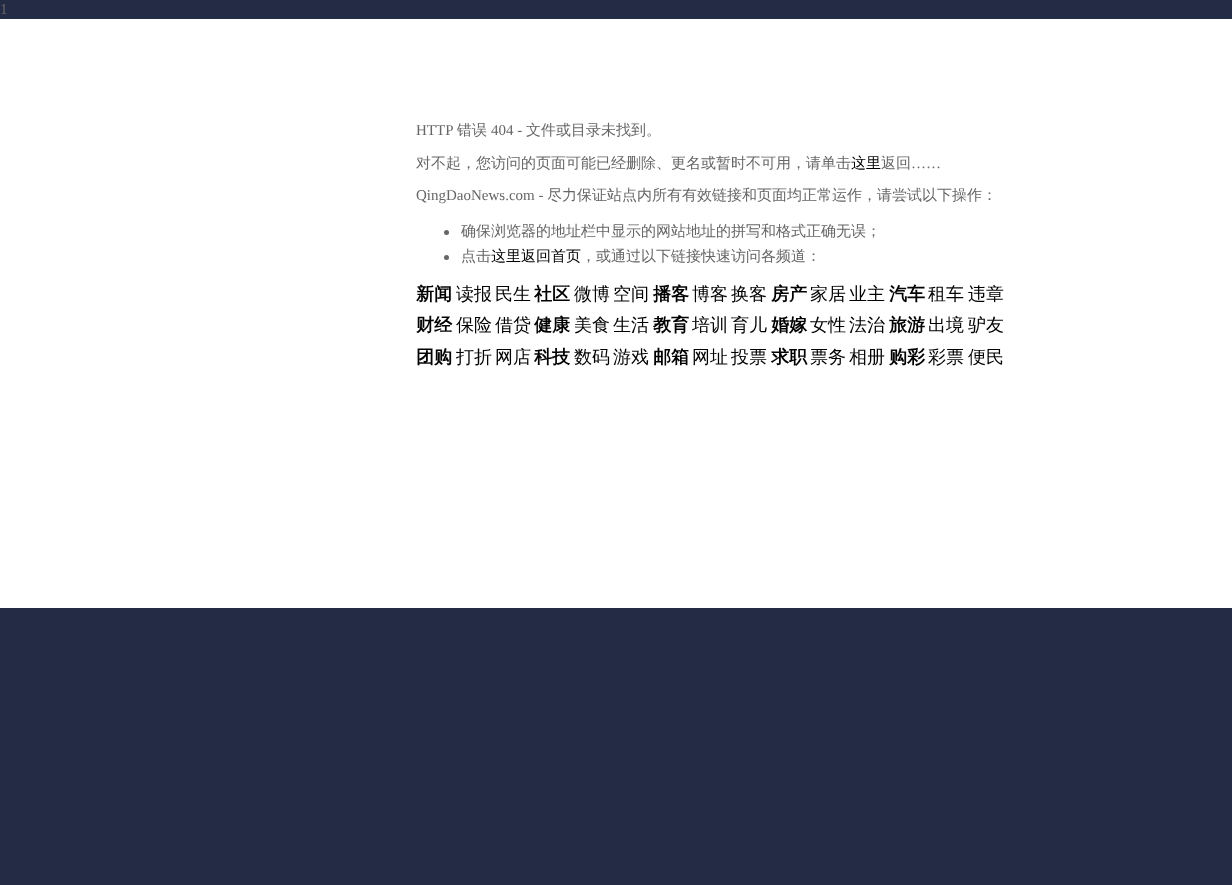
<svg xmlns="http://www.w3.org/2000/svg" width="1232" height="885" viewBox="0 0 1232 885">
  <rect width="100%" height="100%" fill="#242b44"/>
  <path d="M0 19h1232v589H0z" fill="#fff"/>
  <circle cx="446.5" cy="232.5" r="2.5" fill="#666"/>
  <circle cx="446.5" cy="257.5" r="2.5" fill="#666"/>
  <g font-family="Liberation Serif" font-size="15" fill="#666">
    <text x="0" y="14">1</text>
    <text x="416" y="135">HTTP</text>
  </g>
  <text x="457" y="135" font-family="WenQuanYi Zen Hei" font-size="15" font-weight="500" fill="#666">错误</text>
  <text x="491" y="135" font-family="Liberation Serif" font-size="15" fill="#666">404 -</text>
  <g font-family="WenQuanYi Zen Hei" font-size="15" font-weight="500" fill="#666">
    <text x="526" y="135">文件或目录未找到。</text>
    <text x="416" y="168">对不起，您访问的页面可能已经删除、更名或暂时不可用，请单击</text>
  </g>
  <text x="851" y="168" font-family="WenQuanYi Zen Hei" font-size="15" font-weight="500" fill="#000">这里</text>
  <text x="881" y="168" font-family="WenQuanYi Zen Hei" font-size="15" font-weight="500" fill="#666">返回</text>
  <g font-family="Liberation Serif" font-size="15" fill="#666">
    <text x="911" y="168">……</text>
    <text x="416" y="200">QingDaoNews.com -</text>
  </g>
  <g font-family="WenQuanYi Zen Hei" font-size="15" font-weight="500" fill="#666">
    <text x="547" y="200">尽力保证站点内所有有效链接和页面均正常运作，请尝试以下操作：</text>
    <text x="461" y="236">确保浏览器的地址栏中显示的网站地址的拼写和格式正确无误；</text>
    <text x="461" y="261">点击</text>
  </g>
  <text x="491" y="261" font-family="WenQuanYi Zen Hei" font-size="15" font-weight="500" fill="#000">这里返回首页</text>
  <text x="581" y="261" font-family="WenQuanYi Zen Hei" font-size="15" font-weight="500" fill="#666">，或通过以下链接快速访问各频道：</text>
  <text x="416" y="300" font-family="WenQuanYi Zen Hei" font-size="18" font-weight="bold" fill="#000">新闻</text>
  <g font-family="WenQuanYi Zen Hei" font-size="18" font-weight="500" fill="#000">
    <text x="456" y="300">读报</text>
    <text x="495" y="300">民生</text>
  </g>
  <text x="534" y="300" font-family="WenQuanYi Zen Hei" font-size="18" font-weight="bold" fill="#000">社区</text>
  <g font-family="WenQuanYi Zen Hei" font-size="18" font-weight="500" fill="#000">
    <text x="574" y="300">微博</text>
    <text x="613" y="300">空间</text>
  </g>
  <text x="653" y="300" font-family="WenQuanYi Zen Hei" font-size="18" font-weight="bold" fill="#000">播客</text>
  <g font-family="WenQuanYi Zen Hei" font-size="18" font-weight="500" fill="#000">
    <text x="692" y="300">博客</text>
    <text x="731" y="300">换客</text>
  </g>
  <text x="771" y="300" font-family="WenQuanYi Zen Hei" font-size="18" font-weight="bold" fill="#000">房产</text>
  <g font-family="WenQuanYi Zen Hei" font-size="18" font-weight="500" fill="#000">
    <text x="810" y="300">家居</text>
    <text x="849" y="300">业主</text>
  </g>
  <text x="889" y="300" font-family="WenQuanYi Zen Hei" font-size="18" font-weight="bold" fill="#000">汽车</text>
  <g font-family="WenQuanYi Zen Hei" font-size="18" font-weight="500" fill="#000">
    <text x="928" y="300">租车</text>
    <text x="968" y="300">违章</text>
  </g>
  <text x="416" y="331" font-family="WenQuanYi Zen Hei" font-size="18" font-weight="bold" fill="#000">财经</text>
  <g font-family="WenQuanYi Zen Hei" font-size="18" font-weight="500" fill="#000">
    <text x="456" y="331">保险</text>
    <text x="495" y="331">借贷</text>
  </g>
  <text x="534" y="331" font-family="WenQuanYi Zen Hei" font-size="18" font-weight="bold" fill="#000">健康</text>
  <g font-family="WenQuanYi Zen Hei" font-size="18" font-weight="500" fill="#000">
    <text x="574" y="331">美食</text>
    <text x="613" y="331">生活</text>
  </g>
  <text x="653" y="331" font-family="WenQuanYi Zen Hei" font-size="18" font-weight="bold" fill="#000">教育</text>
  <g font-family="WenQuanYi Zen Hei" font-size="18" font-weight="500" fill="#000">
    <text x="692" y="331">培训</text>
    <text x="731" y="331">育儿</text>
  </g>
  <text x="771" y="331" font-family="WenQuanYi Zen Hei" font-size="18" font-weight="bold" fill="#000">婚嫁</text>
  <g font-family="WenQuanYi Zen Hei" font-size="18" font-weight="500" fill="#000">
    <text x="810" y="331">女性</text>
    <text x="849" y="331">法治</text>
  </g>
  <text x="889" y="331" font-family="WenQuanYi Zen Hei" font-size="18" font-weight="bold" fill="#000">旅游</text>
  <g font-family="WenQuanYi Zen Hei" font-size="18" font-weight="500" fill="#000">
    <text x="928" y="331">出境</text>
    <text x="968" y="331">驴友</text>
  </g>
  <text x="416" y="363" font-family="WenQuanYi Zen Hei" font-size="18" font-weight="bold" fill="#000">团购</text>
  <g font-family="WenQuanYi Zen Hei" font-size="18" font-weight="500" fill="#000">
    <text x="456" y="363">打折</text>
    <text x="495" y="363">网店</text>
  </g>
  <text x="534" y="363" font-family="WenQuanYi Zen Hei" font-size="18" font-weight="bold" fill="#000">科技</text>
  <g font-family="WenQuanYi Zen Hei" font-size="18" font-weight="500" fill="#000">
    <text x="574" y="363">数码</text>
    <text x="613" y="363">游戏</text>
  </g>
  <text x="653" y="363" font-family="WenQuanYi Zen Hei" font-size="18" font-weight="bold" fill="#000">邮箱</text>
  <g font-family="WenQuanYi Zen Hei" font-size="18" font-weight="500" fill="#000">
    <text x="692" y="363">网址</text>
    <text x="731" y="363">投票</text>
  </g>
  <text x="771" y="363" font-family="WenQuanYi Zen Hei" font-size="18" font-weight="bold" fill="#000">求职</text>
  <g font-family="WenQuanYi Zen Hei" font-size="18" font-weight="500" fill="#000">
    <text x="810" y="363">票务</text>
    <text x="849" y="363">相册</text>
  </g>
  <text x="889" y="363" font-family="WenQuanYi Zen Hei" font-size="18" font-weight="bold" fill="#000">购彩</text>
  <g font-family="WenQuanYi Zen Hei" font-size="18" font-weight="500" fill="#000">
    <text x="928" y="363">彩票</text>
    <text x="968" y="363">便民</text>
  </g>
</svg>
